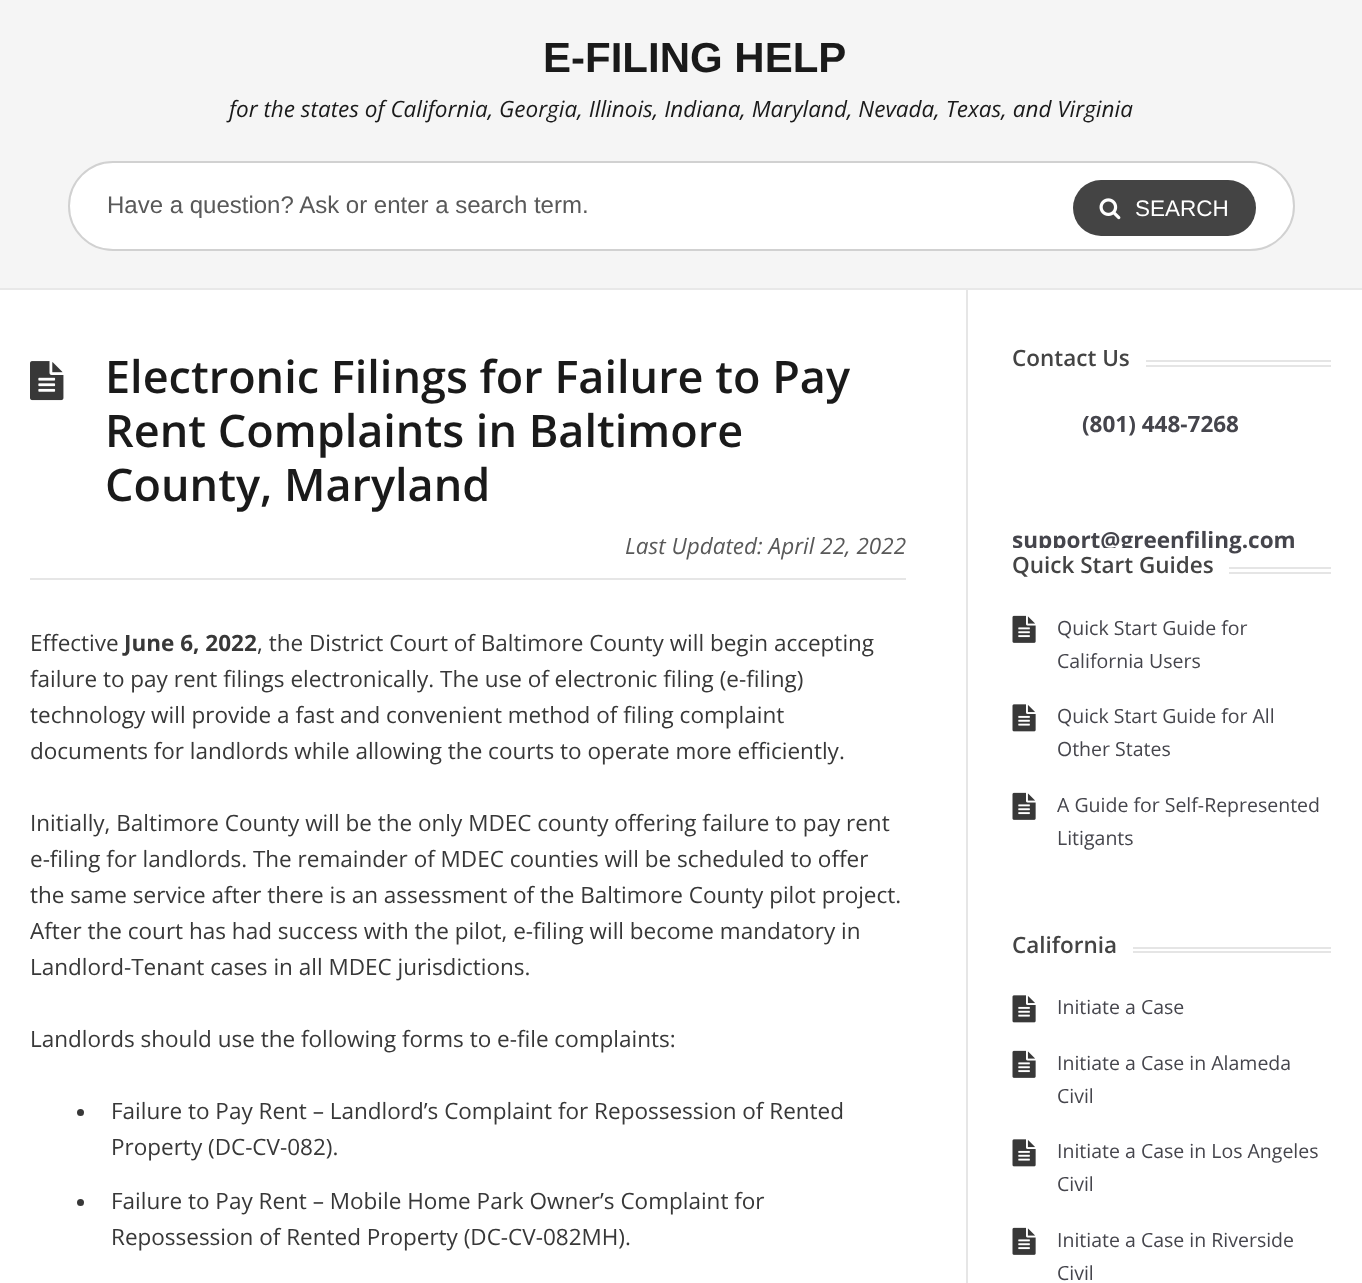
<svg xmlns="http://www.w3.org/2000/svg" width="1362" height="1283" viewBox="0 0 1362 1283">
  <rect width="100%" height="100%" fill="#fff"/>
  <path d="M0 0h1362v288H0z" fill="#f5f5f5"/>
  <path d="M0 288h1362v2H0z" fill="#e8e8e8"/>
  <rect x="69" y="162" width="1225" height="88" rx="44" fill="#fff" stroke="#d1d1d1" stroke-width="2"/>
  <rect x="1073" y="180" width="183" height="56" rx="28" fill="#444"/>
  <image x="1099" y="198" width="22" height="22" href="img/1.png"/>
  <path d="M966 290h2v993H966z" fill="#e6e6e6"/>
  <path d="M30 578h876v2H30z" fill="#e6e6e6"/>
  <image x="30" y="361" width="34" height="40" href="img/2.png"/>
  <circle cx="80.5" cy="1112.5" r="3.5" fill="#383838"/>
  <circle cx="80.5" cy="1202.5" r="3.5" fill="#383838"/>
  <path d="M1146 360h185v2H1146z" fill="#e5e5e5"/>
  <path d="M1146 365h185v2H1146z" fill="#e5e5e5"/>
  <path d="M1229 567h102v2H1229z" fill="#e5e5e5"/>
  <path d="M1229 572h102v2H1229z" fill="#e5e5e5"/>
  <image x="1012" y="615" width="24" height="28" href="img/3.png"/>
  <image x="1012" y="704" width="24" height="28" href="img/4.png"/>
  <image x="1012" y="792" width="24" height="28" href="img/3.png"/>
  <path d="M1133 947h198v2H1133z" fill="#e5e5e5"/>
  <path d="M1133 951h198v2H1133z" fill="#e5e5e5"/>
  <image x="1012" y="995" width="24" height="28" href="img/4.png"/>
  <image x="1012" y="1050" width="24" height="28" href="img/3.png"/>
  <image x="1012" y="1139" width="24" height="28" href="img/4.png"/>
  <image x="1012" y="1227" width="24" height="28" href="img/3.png"/>
  <text x="543" y="72" font-family="Liberation Sans" font-size="42" font-weight="bold" fill="#1a1a1a">E-FILING HELP</text>
  <text x="229" y="117" font-family="Open Sans" font-size="22.5" font-style="italic" fill="#1a1a1a">for the states of California, Georgia, Illinois, Indiana, Maryland, Nevada, Texas, and Virginia</text>
  <text x="107" y="213" font-family="Liberation Sans" font-size="24" fill="#595959">Have a question? Ask or enter a search term.</text>
  <text x="1135" y="216" font-family="Liberation Sans" font-size="22.5" fill="#fff">SEARCH</text>
  <g font-family="Open Sans" font-size="45" font-weight="600" fill="#1a1a1a">
    <text x="105" y="393">Electronic Filings for Failure to Pay</text>
    <text x="105" y="447">Rent Complaints in Baltimore</text>
    <text x="105" y="501">County, Maryland</text>
  </g>
  <text x="625" y="554" font-family="Open Sans" font-size="22.5" font-style="italic" fill="#595959">Last Updated: April 22, 2022</text>
  <text x="30" y="651" font-family="Open Sans" font-size="22.5" fill="#383838">Effective</text>
  <text x="124" y="651" font-family="Open Sans" font-size="22.5" font-weight="bold" fill="#383838">June 6, 2022</text>
  <g font-family="Open Sans" font-size="22.5" fill="#383838">
    <text x="257" y="651">, the District Court of Baltimore County will begin accepting</text>
    <text x="30" y="687">failure to pay rent filings electronically. The use of electronic filing (e-filing)</text>
    <text x="30" y="723">technology will provide a fast and convenient method of filing complaint</text>
    <text x="30" y="759">documents for landlords while allowing the courts to operate more efficiently.</text>
    <text x="30" y="831">Initially, Baltimore County will be the only MDEC county offering failure to pay rent</text>
    <text x="30" y="867">e-filing for landlords. The remainder of MDEC counties will be scheduled to offer</text>
    <text x="30" y="903">the same service after there is an assessment of the Baltimore County pilot project.</text>
    <text x="30" y="939">After the court has had success with the pilot, e-filing will become mandatory in</text>
    <text x="30" y="975">Landlord-Tenant cases in all MDEC jurisdictions.</text>
    <text x="30" y="1047">Landlords should use the following forms to e-file complaints:</text>
    <text x="111" y="1119">Failure to Pay Rent – Landlord’s Complaint for Repossession of Rented</text>
    <text x="111" y="1155">Property (DC-CV-082).</text>
    <text x="111" y="1209">Failure to Pay Rent – Mobile Home Park Owner’s Complaint for</text>
    <text x="111" y="1245">Repossession of Rented Property (DC-CV-082MH).</text>
  </g>
  <text x="1012" y="366" font-family="Open Sans" font-size="22.5" font-weight="600" fill="#444">Contact Us</text>
  <g font-family="Open Sans" font-size="22.5" font-weight="bold" fill="#45454c">
    <text x="1082" y="432">(801) 448-7268</text>
    <text x="1012" y="548">support@greenfiling.com</text>
  </g>
  <path d="M1015 548h152v6H1015z" fill="#fff"/>
  <text x="1012" y="573" font-family="Open Sans" font-size="22.5" font-weight="600" fill="#444">Quick Start Guides</text>
  <g font-family="Open Sans" font-size="19.5" fill="#45454c">
    <text x="1057" y="635">Quick Start Guide for</text>
    <text x="1057" y="668">California Users</text>
    <text x="1057" y="723">Quick Start Guide for All</text>
    <text x="1057" y="756">Other States</text>
    <text x="1057" y="812">A Guide for Self-Represented</text>
    <text x="1057" y="845">Litigants</text>
  </g>
  <text x="1012" y="953" font-family="Open Sans" font-size="22.5" font-weight="600" fill="#444">California</text>
  <g font-family="Open Sans" font-size="19.5" fill="#45454c">
    <text x="1057" y="1014">Initiate a Case</text>
    <text x="1057" y="1070">Initiate a Case in Alameda</text>
    <text x="1057" y="1103">Civil</text>
    <text x="1057" y="1158">Initiate a Case in Los Angeles</text>
    <text x="1057" y="1191">Civil</text>
    <text x="1057" y="1247">Initiate a Case in Riverside</text>
    <text x="1057" y="1280">Civil</text>
  </g>
</svg>
